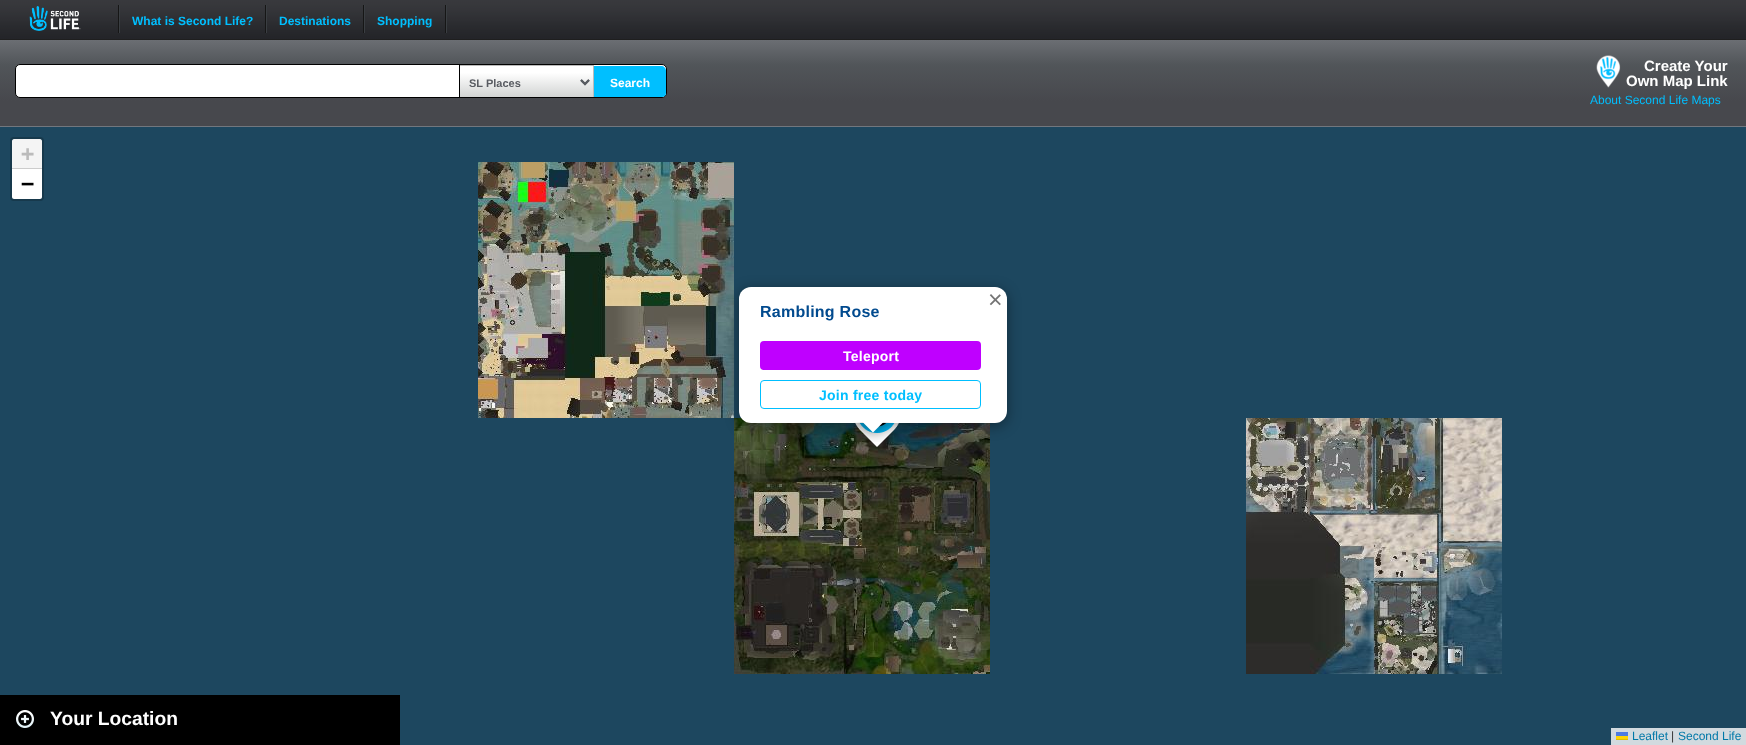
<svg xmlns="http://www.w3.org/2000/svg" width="1746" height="745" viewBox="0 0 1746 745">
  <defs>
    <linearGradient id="g1" gradientUnits="userSpaceOnUse" x1="0" y1="126" x2="0" y2="40"><stop offset="0.29" stop-color="#47484d"/><stop offset="0.71" stop-color="#515559"/><stop offset="1" stop-color="#6b6e73"/></linearGradient>
    <clipPath id="clip1"><rect x="16" y="65" width="650" height="32" rx="4"/></clipPath>
    <clipPath id="clip2"><path d="M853 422h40v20H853z"/></clipPath>
    <clipPath id="clip3"><path d="M853 422h40v20H853z"/></clipPath>
  </defs>
  <rect width="100%" height="100%" fill="#1d475f"/>
  <image x="0" y="0" width="1746" height="40" href="img/1.png"/>
  <image x="29" y="6" width="52" height="25" href="img/2.png"/>
  <path d="M119 5h1v28H119z" fill="#3a3e42"/>
  <path d="M118 5h1v28H118z" fill="#161616"/>
  <path d="M266 5h1v28H266z" fill="#3a3e42"/>
  <path d="M265 5h1v28H265z" fill="#161616"/>
  <path d="M364 5h1v28H364z" fill="#3a3e42"/>
  <path d="M363 5h1v28H363z" fill="#161616"/>
  <path d="M446 5h1v28H446z" fill="#3a3e42"/>
  <path d="M445 5h1v28H445z" fill="#161616"/>
  <path d="M0 40h1746v86H0z" fill="url(#g1)"/>
  <path d="M0 126h1746v1H0z" fill="#72777e"/>
  <rect x="15.5" y="64.5" width="651" height="33" rx="4.5" fill="#fff" stroke="#000"/>
  <image x="460" y="66" width="133" height="31" href="img/3.png"/>
  <path d="M459 65h135v1H459z" fill="#bbb"/>
  <path d="M593 65h1v32H593z" fill="#bbb"/>
  <path d="M459 65h1v32H459z" fill="#000"/>
  <path d="M581 80L585 84L589 80" fill="none" stroke="#595c62" stroke-width="2"/>
  <g clip-path="url(#clip1)">
    <path d="M594 66H661C664 66 666 68 666 71V95C666 98 664 100 661 100H594Z" fill="#00bfff"/>
  </g>
  <image x="1596" y="55" width="25" height="33" href="img/4.png"/>
  <rect x="11" y="138" width="32" height="62" rx="3" fill="none" stroke="#17394c" stroke-width="2"/>
  <path d="M14 139H40C41 139 42 140 42 141V169H12V141C12 140 13 139 14 139Z" fill="#f4f4f4"/>
  <path d="M12 168h30v1H12z" fill="#ccc"/>
  <path d="M12 169H42V197C42 198 41 199 40 199H14C13 199 12 198 12 197Z" fill="#fff"/>
  <path d="M1611 728h135v17H1611z" fill="#d2dadf"/>
  <path d="M1616 732h12v4H1616z" fill="#4c7be1"/>
  <path d="M1616 736h12v3H1616z" fill="#ffd500"/>
  <path d="M1616 739h12v1H1616z" fill="#e0bc00"/>
  <image x="478" y="162" width="256" height="256" href="img/5.png"/>
  <image x="734" y="418" width="256" height="256" href="img/6.png"/>
  <image x="1246" y="418" width="256" height="256" href="img/7.png"/>
  <image x="855" y="423" width="44" height="24" href="img/8.png"/>
  <rect x="739" y="290" width="268" height="136" rx="12" fill="#00000066" filter="blur(7px)"/>
  <rect x="739" y="287" width="268" height="136" rx="12" fill="#fff"/>
  <rect x="760" y="341" width="221" height="29" rx="4" fill="#bf00ff"/>
  <rect x="760.5" y="380.5" width="220" height="28" rx="3.5" fill="none" stroke="#00bfff"/>
  <g clip-path="url(#clip2)">
    <path d="M865 415h17v17H865z" fill="#00000066" filter="blur(7px)"/>
  </g>
  <g clip-path="url(#clip3)">
    <path d="M873 408.5L885 420.5L873 432.5L861 420.5Z" fill="#fff"/>
  </g>
  <path d="M0 695h400v50H0z" fill="#000"/>
  <image x="16" y="710" width="18" height="18" href="img/9.png"/>
  <g font-family="Liberation Sans" font-size="12" font-weight="bold" fill="#00bfff">
    <text x="132" y="25">What is Second Life?</text>
    <text x="279" y="25">Destinations</text>
    <text x="377" y="25">Shopping</text>
  </g>
  <text x="469" y="87" font-family="Liberation Sans" font-size="11" font-weight="bold" fill="#595c62">SL Places</text>
  <text x="610" y="87" font-family="Liberation Sans" font-size="12" font-weight="bold" fill="#fff">Search</text>
  <g font-family="Liberation Sans" font-size="15" font-weight="bold" fill="#fff">
    <text x="1644" y="71">Create Your</text>
    <text x="1626" y="86">Own Map Link</text>
  </g>
  <text x="1590" y="104" font-family="Liberation Sans" font-size="12" fill="#00bfff">About Second Life Maps</text>
  <text x="21" y="161" font-family="DejaVu Sans Mono" font-size="22" font-weight="bold" fill="#bbb">+</text>
  <text x="21" y="191" font-family="DejaVu Sans Mono" font-size="22" font-weight="bold" fill="#000">−</text>
  <text x="1632" y="740" font-family="Liberation Sans" font-size="12" fill="#0078a8">Leaflet</text>
  <text x="1671" y="740" font-family="Liberation Sans" font-size="12" fill="#333">|</text>
  <text x="1678" y="740" font-family="Liberation Sans" font-size="12" fill="#0078a8">Second Life</text>
  <text x="988" y="308" font-family="Liberation Sans" font-size="25" fill="#757575">×</text>
  <text x="760" y="317" font-family="Liberation Sans" font-size="16" font-weight="bold" letter-spacing="0.25" fill="#014a8e">Rambling Rose</text>
  <text x="843" y="361" font-family="Liberation Sans" font-size="14" font-weight="bold" letter-spacing="0.25" fill="#fff">Teleport</text>
  <text x="819" y="400" font-family="Liberation Sans" font-size="14" font-weight="bold" letter-spacing="0.25" fill="#00bfff">Join free today</text>
  <text x="50" y="725" font-family="Liberation Sans" font-size="19.25" font-weight="bold" fill="#fff">Your Location</text>
</svg>
